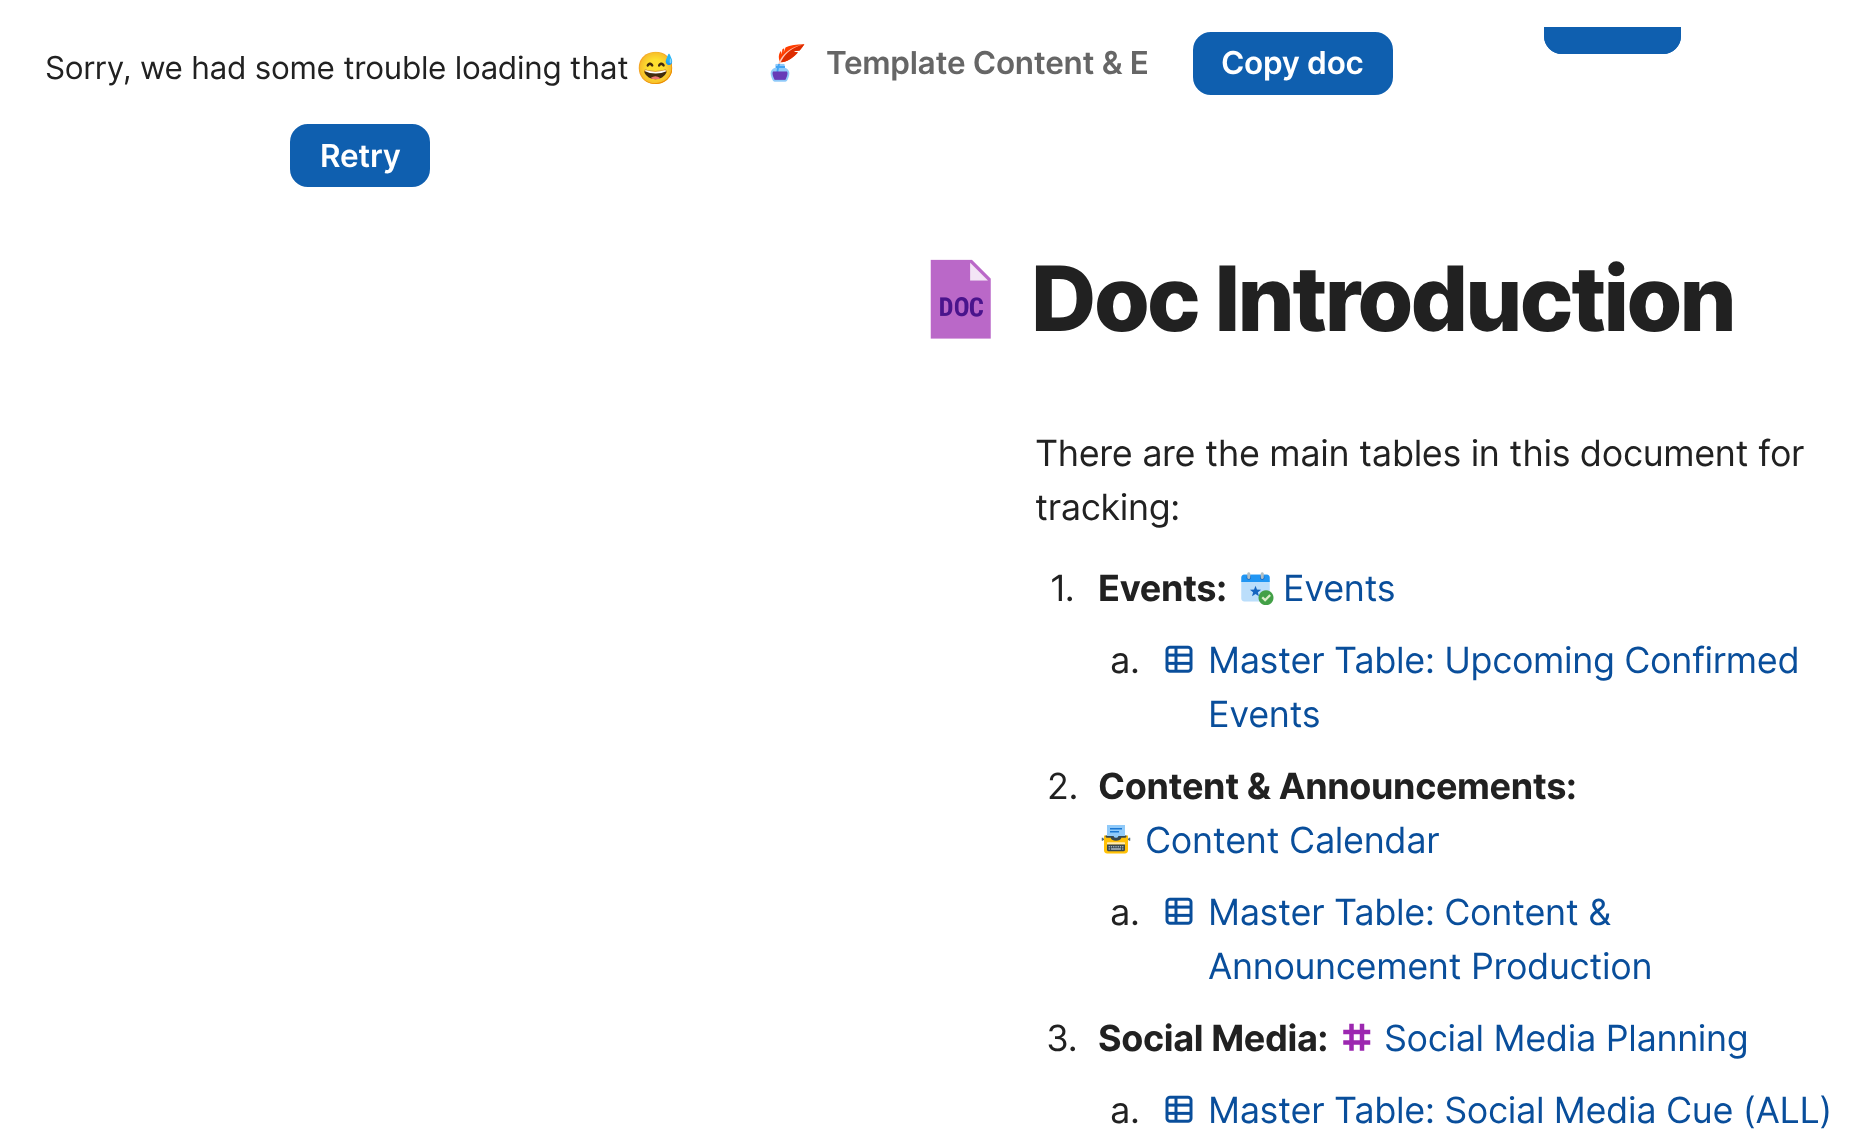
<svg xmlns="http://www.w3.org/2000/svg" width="1872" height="1140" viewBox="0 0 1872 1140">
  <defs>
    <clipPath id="clip1"><path d="M1148 27h684v72H1148z"/></clipPath>
  </defs>
  <rect width="100%" height="100%" fill="#fff"/>
  <rect x="291" y="125" width="138" height="61" rx="17" fill="#0f5faf" stroke="#0f5faf" stroke-width="2"/>
  <image x="770" y="44" width="35" height="38" href="img/1.png"/>
  <path d="M1544 27H1681V36C1681 46 1673 54 1663 54H1562C1552 54 1544 46 1544 36Z" fill="#0f5faf"/>
  <g clip-path="url(#clip1)">
    <rect x="1545" y="-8" width="135" height="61" rx="17" fill="none" stroke="#0f5faf" stroke-width="2"/>
  </g>
  <rect x="1194" y="33" width="198" height="61" rx="17" fill="#0f5faf" stroke="#0f5faf" stroke-width="2"/>
  <image x="930" y="259" width="61" height="80" href="img/2.png"/>
  <image x="1241" y="572" width="33" height="33" href="img/3.png"/>
  <image x="1165" y="645" width="28" height="28" href="img/4.png"/>
  <image x="1101" y="825" width="30" height="29" href="img/5.png"/>
  <image x="1165" y="897" width="28" height="28" href="img/4.png"/>
  <image x="1343" y="1023" width="28" height="28" href="img/6.png"/>
  <image x="1165" y="1095" width="28" height="28" href="img/4.png"/>
  <text x="45" y="79" font-family="Inter" font-size="31.5" letter-spacing="-0.3" fill="#212121">Sorry, we had some trouble loading that</text>
  <text x="636" y="79" font-family="Noto Color Emoji" font-size="31.5" letter-spacing="-0.3" fill="#212121">😅</text>
  <text x="320" y="167" font-family="Inter" font-size="31.5" font-weight="600" letter-spacing="-0.3" fill="#fff">Retry</text>
  <text x="826" y="74" font-family="Inter" font-size="31.5" font-weight="600" letter-spacing="-0.3" fill="#666">Template Content &amp; E</text>
  <text x="1221" y="74" font-family="Inter" font-size="31.5" font-weight="600" letter-spacing="-0.3" fill="#fff">Copy doc</text>
  <text x="1031" y="331" font-family="Inter" font-size="90" font-weight="800" letter-spacing="-2.75" fill="#212121">Doc Introduction</text>
  <g font-family="Inter" font-size="36" letter-spacing="-0.35" fill="#212121">
    <text x="1035" y="466">There are the main tables in this document for</text>
    <text x="1035" y="520">tracking:</text>
    <text x="1050" y="601">1.</text>
  </g>
  <text x="1098" y="601" font-family="Inter" font-size="36" font-weight="bold" letter-spacing="-0.35" fill="#212121">Events:</text>
  <text x="1283" y="601" font-family="Inter" font-size="36" letter-spacing="-0.35" fill="#094e9b">Events</text>
  <text x="1110" y="673" font-family="Inter" font-size="36" letter-spacing="-0.35" fill="#212121">a.</text>
  <g font-family="Inter" font-size="36" letter-spacing="-0.35" fill="#094e9b">
    <text x="1208" y="673">Master Table: Upcoming Confirmed</text>
    <text x="1208" y="727">Events</text>
  </g>
  <text x="1047" y="799" font-family="Inter" font-size="36" letter-spacing="-0.35" fill="#212121">2.</text>
  <text x="1098" y="799" font-family="Inter" font-size="36" font-weight="bold" letter-spacing="-0.35" fill="#212121">Content &amp; Announcements:</text>
  <text x="1145" y="853" font-family="Inter" font-size="36" letter-spacing="-0.35" fill="#094e9b">Content Calendar</text>
  <text x="1110" y="925" font-family="Inter" font-size="36" letter-spacing="-0.35" fill="#212121">a.</text>
  <g font-family="Inter" font-size="36" letter-spacing="-0.35" fill="#094e9b">
    <text x="1208" y="925">Master Table: Content &amp;</text>
    <text x="1208" y="979">Announcement Production</text>
  </g>
  <text x="1046" y="1051" font-family="Inter" font-size="36" letter-spacing="-0.35" fill="#212121">3.</text>
  <text x="1098" y="1051" font-family="Inter" font-size="36" font-weight="bold" letter-spacing="-0.35" fill="#212121">Social Media:</text>
  <text x="1384" y="1051" font-family="Inter" font-size="36" letter-spacing="-0.35" fill="#094e9b">Social Media Planning</text>
  <text x="1110" y="1123" font-family="Inter" font-size="36" letter-spacing="-0.35" fill="#212121">a.</text>
  <text x="1208" y="1123" font-family="Inter" font-size="36" letter-spacing="-0.35" fill="#094e9b">Master Table: Social Media Cue (ALL)</text>
</svg>
